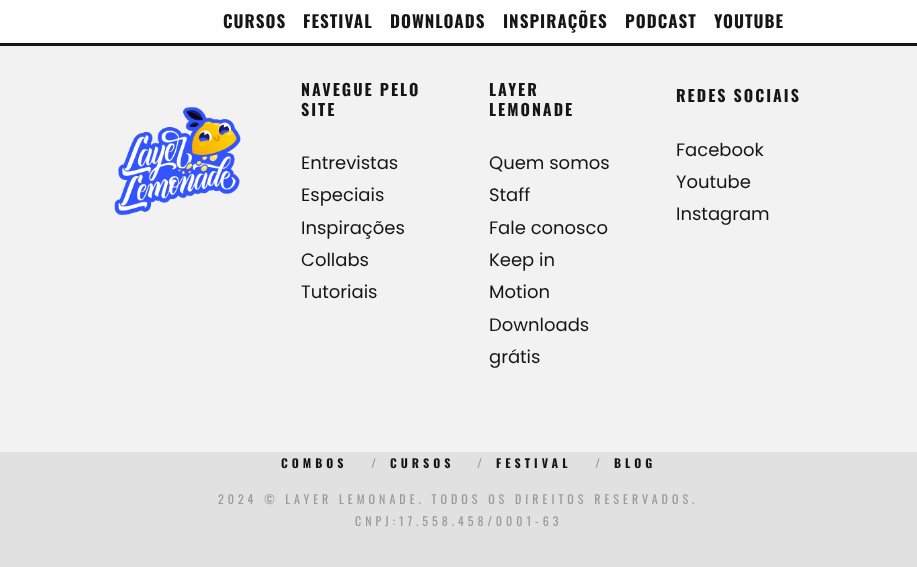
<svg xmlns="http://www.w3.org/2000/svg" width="917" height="567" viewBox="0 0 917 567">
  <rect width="100%" height="100%" fill="#f2f2f2"/>
  <path d="M0 0h917v43H0z" fill="#fefefe"/>
  <path d="M0 43h917v3H0z" fill="#161616"/>
  <image x="114" y="107" width="127" height="109" href="img/1.png"/>
  <path d="M0 452h917v115H0z" fill="#e1e1e1"/>
  <g font-family="Oswald" font-size="17" font-weight="bold" letter-spacing="1" fill="#161616">
    <text x="223" y="28">CURSOS</text>
    <text x="303" y="28">FESTIVAL</text>
    <text x="390" y="28">DOWNLOADS</text>
    <text x="503" y="28">INSPIRAÇÕES</text>
    <text x="625" y="28">PODCAST</text>
    <text x="714" y="28">YOUTUBE</text>
  </g>
  <g font-family="Oswald" font-size="16" font-weight="bold" letter-spacing="2" fill="#161616">
    <text x="301" y="96">NAVEGUE PELO</text>
    <text x="301" y="116">SITE</text>
  </g>
  <g font-family="Poppins" font-size="18" fill="#161616">
    <text x="301" y="169">Entrevistas</text>
    <text x="301" y="201">Especiais</text>
    <text x="301" y="234">Inspirações</text>
    <text x="301" y="266">Collabs</text>
    <text x="301" y="298">Tutoriais</text>
  </g>
  <g font-family="Oswald" font-size="16" font-weight="bold" letter-spacing="2" fill="#161616">
    <text x="489" y="96">LAYER</text>
    <text x="489" y="116">LEMONADE</text>
  </g>
  <g font-family="Poppins" font-size="18" fill="#161616">
    <text x="489" y="169">Quem somos</text>
    <text x="489" y="201">Staff</text>
    <text x="489" y="234">Fale conosco</text>
    <text x="489" y="266">Keep in</text>
    <text x="489" y="298">Motion</text>
    <text x="489" y="331">Downloads</text>
    <text x="489" y="363">grátis</text>
  </g>
  <text x="676" y="102" font-family="Oswald" font-size="16" font-weight="bold" letter-spacing="2" fill="#161616">REDES SOCIAIS</text>
  <g font-family="Poppins" font-size="18" fill="#161616">
    <text x="676" y="156">Facebook</text>
    <text x="676" y="188">Youtube</text>
    <text x="676" y="220">Instagram</text>
  </g>
  <text x="281" y="468" font-family="Oswald" font-size="12" font-weight="bold" letter-spacing="4" fill="#161616">COMBOS</text>
  <text x="371" y="468" font-family="Oswald" font-size="12" font-weight="bold" letter-spacing="4" fill="#999">/</text>
  <text x="390" y="468" font-family="Oswald" font-size="12" font-weight="bold" letter-spacing="4" fill="#161616">CURSOS</text>
  <text x="477" y="468" font-family="Oswald" font-size="12" font-weight="bold" letter-spacing="4" fill="#999">/</text>
  <text x="496" y="468" font-family="Oswald" font-size="12" font-weight="bold" letter-spacing="4" fill="#161616">FESTIVAL</text>
  <text x="595" y="468" font-family="Oswald" font-size="12" font-weight="bold" letter-spacing="4" fill="#999">/</text>
  <text x="614" y="468" font-family="Oswald" font-size="12" font-weight="bold" letter-spacing="4" fill="#161616">BLOG</text>
  <g font-family="Oswald" font-size="12" letter-spacing="4" fill="#999">
    <text x="218" y="504">2024 © LAYER LEMONADE. TODOS OS DIREITOS RESERVADOS.</text>
    <text x="355" y="526">CNPJ:17.558.458/0001-63</text>
  </g>
</svg>
